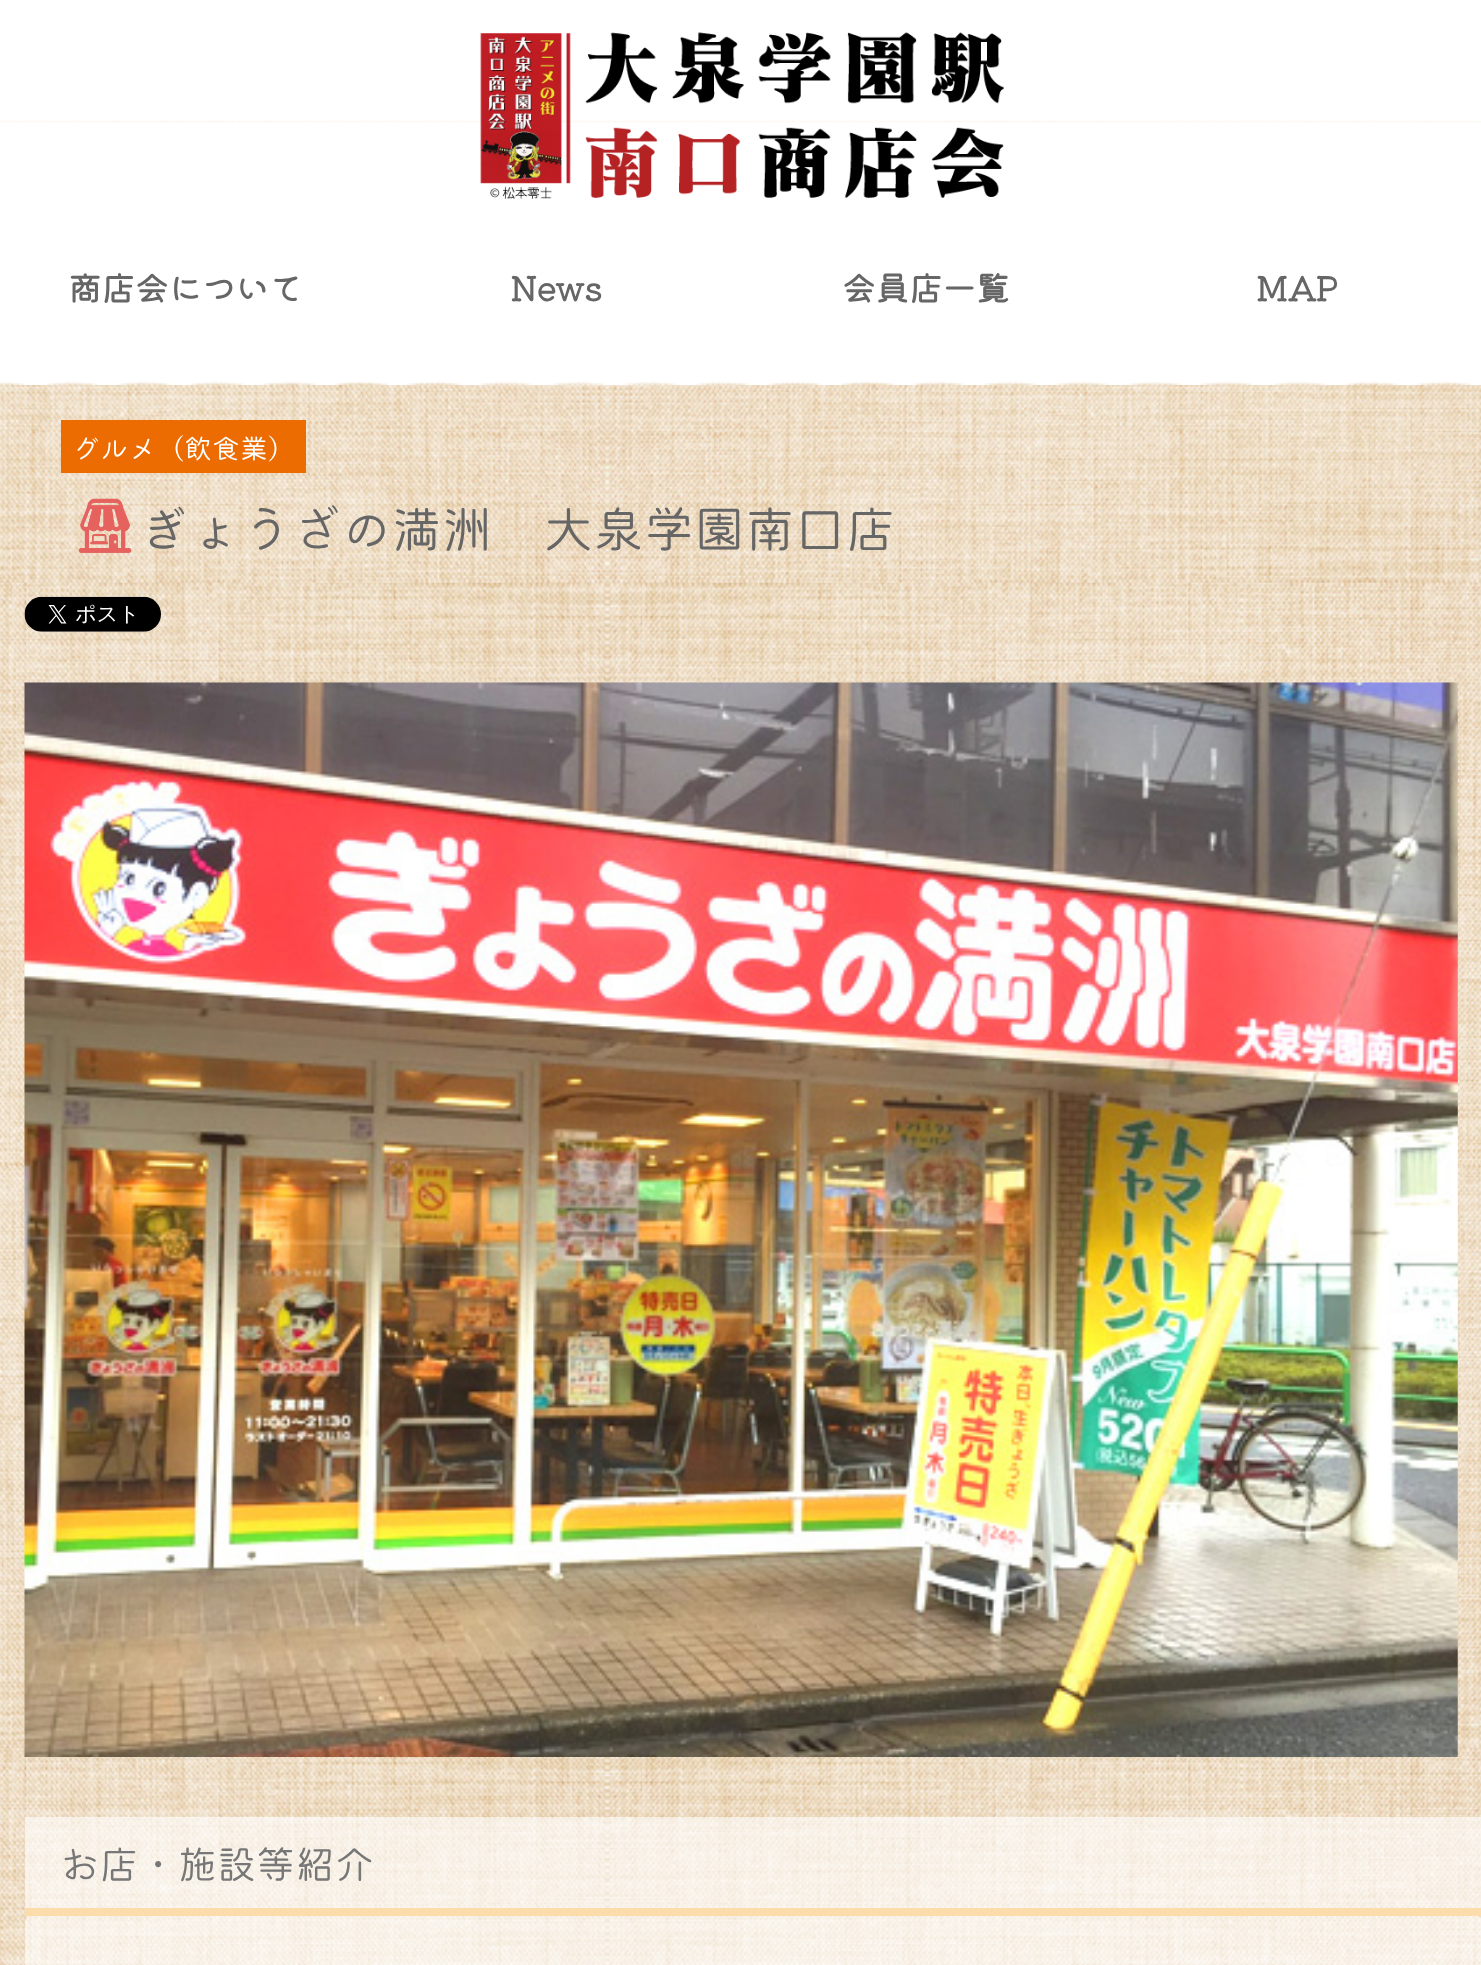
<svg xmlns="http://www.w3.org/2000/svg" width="1481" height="1965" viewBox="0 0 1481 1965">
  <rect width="100%" height="100%" fill="#fff"/>
  <image x="0" y="120" width="1481" height="1845" href="img/1.png"/>
  <image x="0" y="0" width="1481" height="385" href="img/2.png"/>
  <image x="480" y="32" width="524" height="167" href="img/3.png"/>
  <path d="M61 420h245v53H61z" fill="#ed6c01"/>
  <image x="78" y="498" width="54" height="55" href="img/4.png"/>
  <image x="24" y="596" width="137" height="36" href="img/5.png"/>
  <image x="24" y="682" width="1434" height="1075" href="img/6.png"/>
  <path d="M25 1817h1456v91H25z" fill="#ffffff99"/>
  <path d="M25 1908h1456v8H25z" fill="#fcdcaa"/>
  <rect x="25" y="1916" width="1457" height="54" rx="5" fill="#ffffff99"/>
  <g font-family="Kiwi Maru" font-size="33.5" font-weight="bold" fill="#666">
    <text x="68" y="301">商店会について</text>
    <text x="510" y="301">News</text>
    <text x="842" y="301">会員店一覧</text>
    <text x="1256" y="301">MAP</text>
  </g>
  <text x="72" y="459" font-family="Kiwi Maru" font-size="28" font-weight="300" fill="#fff">グルメ（飲食業）</text>
  <text x="140" y="548" font-family="Kiwi Maru" font-size="50.4" font-weight="300" fill="#666">ぎょうざの満洲　大泉学園南口店</text>
  <text x="60" y="1879" font-family="Kiwi Maru" font-size="39.25" font-weight="300" fill="#777">お店・施設等紹介</text>
</svg>
